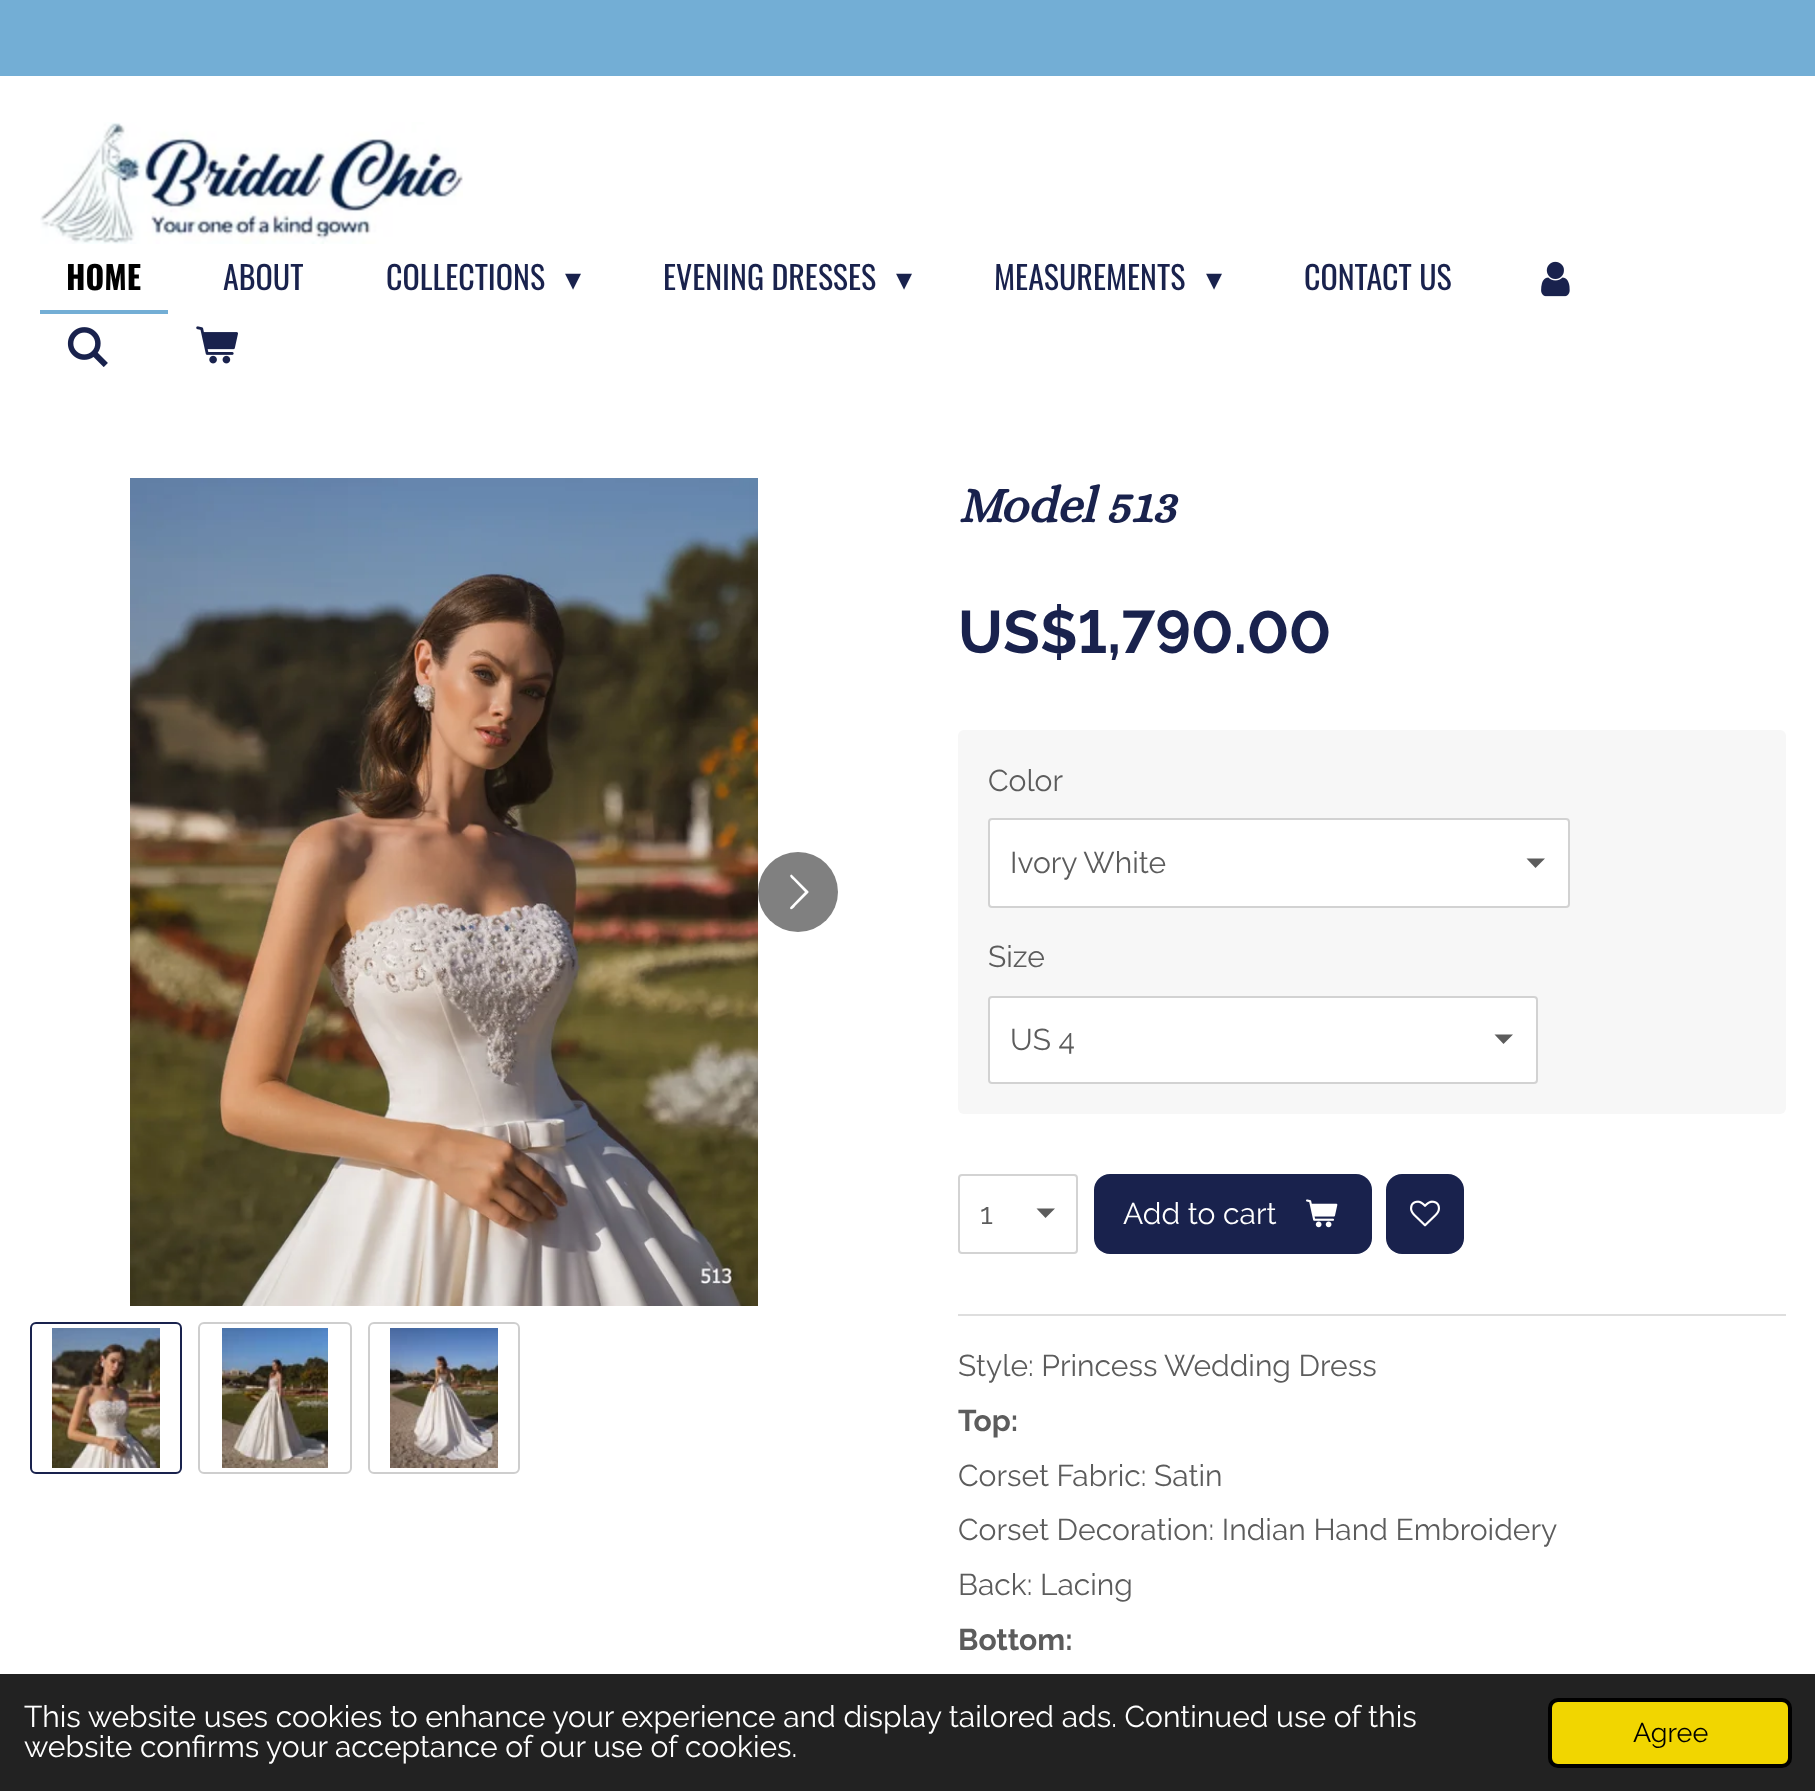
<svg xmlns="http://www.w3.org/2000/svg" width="1815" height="1791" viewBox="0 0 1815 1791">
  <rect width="100%" height="100%" fill="#fff"/>
  <path d="M0 0h1815v76H0z" fill="#73aed5"/>
  <image x="40" y="122" width="423" height="122" href="img/1.png"/>
  <path d="M40 310h128v4H40z" fill="#73aed5"/>
  <image x="1541" y="261" width="29" height="36" href="img/2.png"/>
  <image x="67" y="327" width="41" height="40" href="img/3.png"/>
  <image x="196" y="326" width="42" height="38" href="img/4.png"/>
  <image x="130" y="478" width="628" height="828" href="img/5.png"/>
  <circle cx="798" cy="892" r="40" fill="#808080"/>
  <path d="M790.5 907L805 892L793 879.5C792.5 879 788 875.5 791.5 874.5L792 875L808.5 891.5V892.5L795 906C795 906.5 791 911.5 790 908Z" fill="#fff"/>
  <rect x="31" y="1323" width="150" height="150" rx="5" fill="none" stroke="#19224d" stroke-width="2"/>
  <image x="52" y="1328" width="108" height="140" href="img/6.png"/>
  <rect x="199" y="1323" width="152" height="150" rx="5" fill="none" stroke="#cecece" stroke-width="2"/>
  <image x="222" y="1328" width="106" height="140" href="img/7.png"/>
  <rect x="369" y="1323" width="150" height="150" rx="5" fill="none" stroke="#cecece" stroke-width="2"/>
  <image x="390" y="1328" width="108" height="140" href="img/8.png"/>
  <rect x="958" y="730" width="828" height="384" rx="6" fill="#f7f7f7"/>
  <rect x="988" y="818" width="582" height="90" rx="4" fill="#fff"/>
  <path d="M1535.5 868L1526.5 858.5H1545Z" fill="#5c5c5c"/>
  <rect x="989" y="819" width="580" height="88" rx="3" fill="none" stroke="#a6a6a680" stroke-width="2"/>
  <rect x="988" y="996" width="550" height="88" rx="4" fill="#fff"/>
  <path d="M1503.5 1044L1494.5 1034.5H1513Z" fill="#5c5c5c"/>
  <rect x="989" y="997" width="548" height="86" rx="3" fill="none" stroke="#a6a6a680" stroke-width="2"/>
  <path d="M1045.5 1218L1036.5 1208.5H1055Z" fill="#5c5c5c"/>
  <rect x="959" y="1175" width="118" height="78" rx="3" fill="none" stroke="#d3d3d3" stroke-width="2"/>
  <rect x="1094" y="1174" width="278" height="80" rx="16" fill="#19224d"/>
  <image x="1306" y="1199" width="32" height="29" href="img/9.png"/>
  <rect x="1386" y="1174" width="78" height="80" rx="16" fill="#19224d"/>
  <image x="1410" y="1200" width="30" height="27" href="img/10.png"/>
  <path d="M958 1314h828v2H958z" fill="#dedede"/>
  <path d="M0 1674h1815v117H0z" fill="#222"/>
  <rect x="1550" y="1700" width="240" height="66" rx="8" fill="#f1d600" stroke="#000" stroke-width="4"/>
  <text x="66" y="290" font-family="Oswald" font-size="32" font-weight="bold" fill="#000">HOME</text>
  <g font-family="Oswald" font-size="32" fill="#19224d">
    <text x="223" y="290">ABOUT</text>
    <text x="386" y="290">COLLECTIONS</text>
  </g>
  <text x="565" y="290" font-family="DejaVu Sans" font-size="32" fill="#19224d">▾</text>
  <text x="663" y="290" font-family="Oswald" font-size="32" fill="#19224d">EVENING DRESSES</text>
  <text x="896" y="290" font-family="DejaVu Sans" font-size="32" fill="#19224d">▾</text>
  <text x="994" y="290" font-family="Oswald" font-size="32" fill="#19224d">MEASUREMENTS</text>
  <text x="1206" y="290" font-family="DejaVu Sans" font-size="32" fill="#19224d">▾</text>
  <text x="1304" y="290" font-family="Oswald" font-size="32" fill="#19224d">CONTACT US</text>
  <text x="958" y="522" font-family="Alice" font-size="50" font-weight="bold" font-style="italic" fill="#19224d">Model 513</text>
  <text x="958" y="653" font-family="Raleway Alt" font-size="60" font-weight="bold" fill="#19224d">US$1,790.00</text>
  <g font-family="Raleway" font-size="30" fill="#5c5c5c">
    <text x="988" y="791">Color</text>
    <text x="1010" y="873">Ivory White</text>
    <text x="988" y="967">Size</text>
    <text x="1010" y="1050">US 4</text>
    <text x="980" y="1224">1</text>
  </g>
  <text x="1123" y="1224" font-family="Raleway" font-size="30" fill="#fff">Add to cart</text>
  <text x="958" y="1376" font-family="Raleway" font-size="30" fill="#5c5c5c">Style: Princess Wedding Dress</text>
  <text x="958" y="1431" font-family="Raleway" font-size="30" font-weight="bold" fill="#5c5c5c">Top:</text>
  <g font-family="Raleway" font-size="30" fill="#5c5c5c">
    <text x="958" y="1486">Corset Fabric: Satin</text>
    <text x="958" y="1540">Corset Decoration: Indian Hand Embroidery</text>
    <text x="958" y="1595">Back: Lacing</text>
  </g>
  <text x="958" y="1650" font-family="Raleway" font-size="30" font-weight="bold" fill="#5c5c5c">Bottom:</text>
  <g font-family="Raleway" font-size="30" fill="#fff">
    <text x="24" y="1727">This website uses cookies to enhance your experience and display tailored ads. Continued use of this</text>
    <text x="24" y="1757">website confirms your acceptance of our use of cookies.</text>
  </g>
  <text x="1633" y="1742" font-family="Raleway" font-size="27" fill="#000">Agree</text>
</svg>
